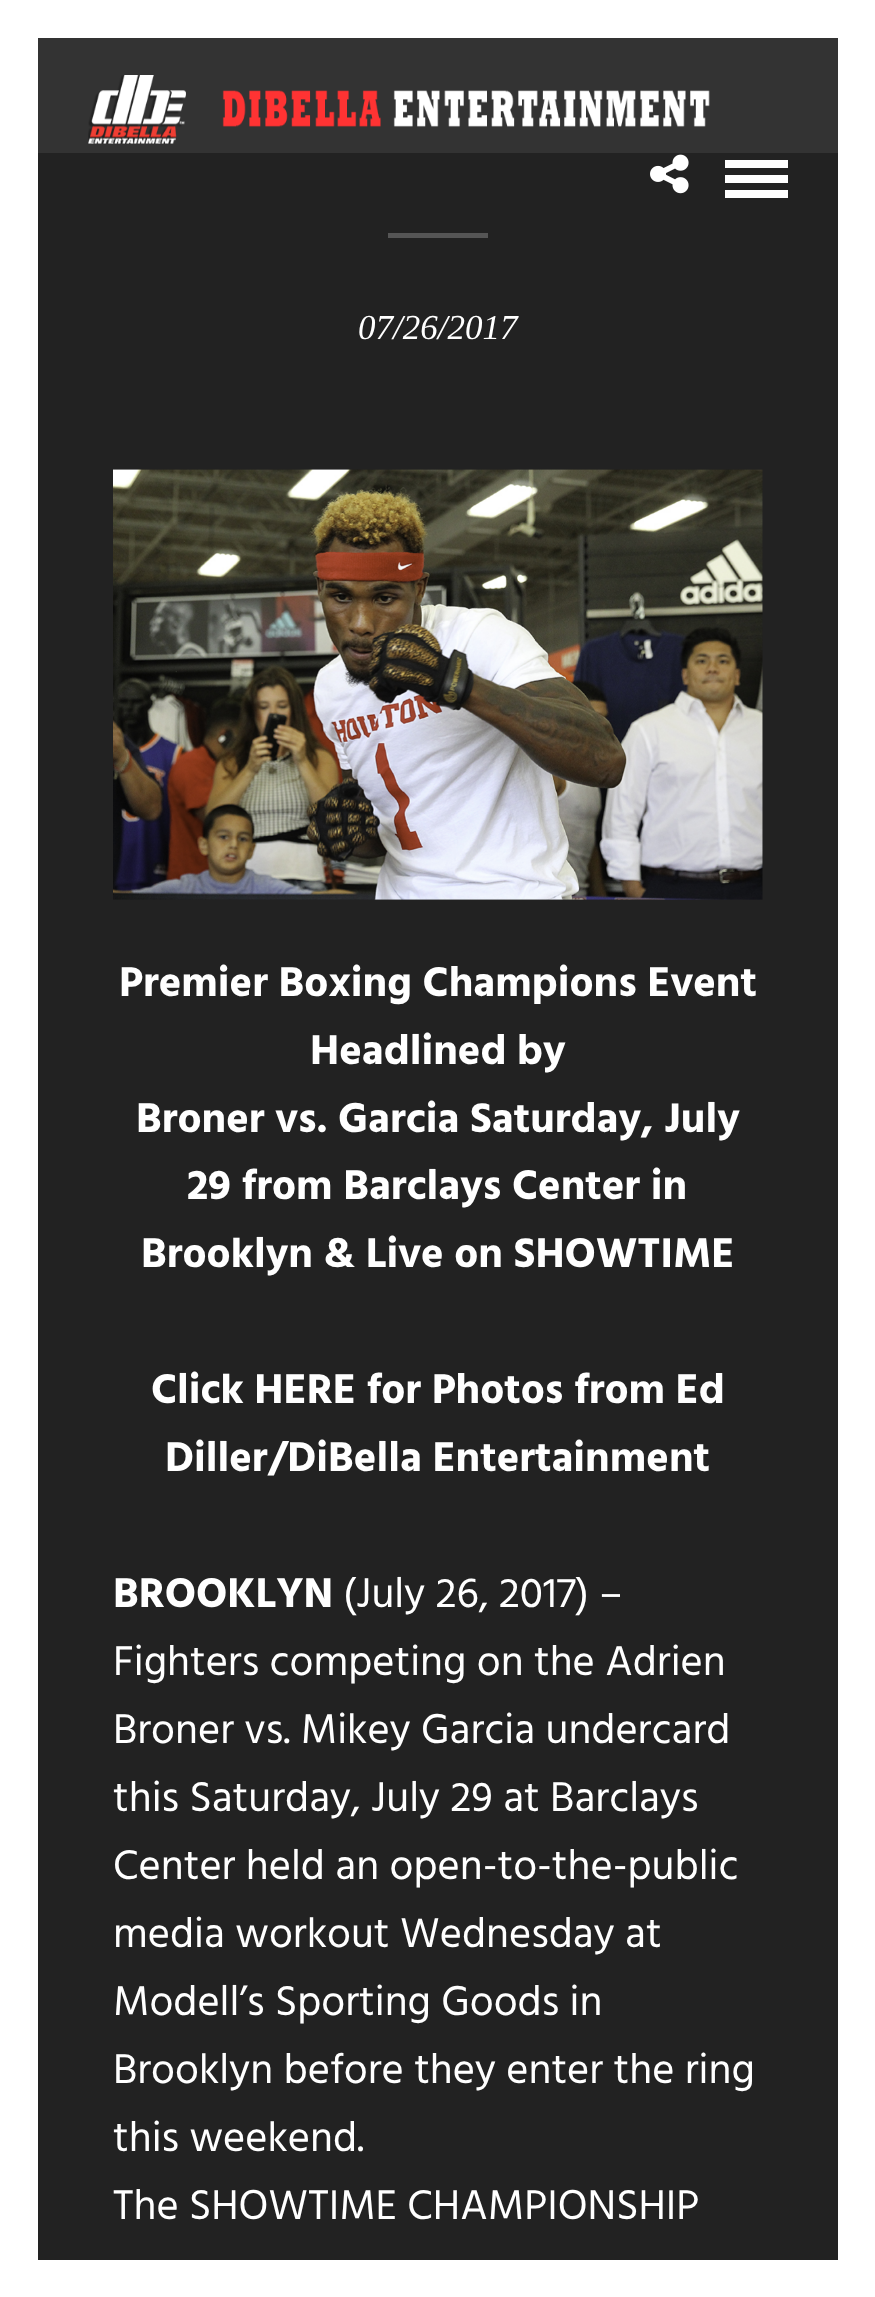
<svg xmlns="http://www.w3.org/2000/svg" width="875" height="2297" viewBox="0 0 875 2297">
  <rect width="100%" height="100%" fill="#222"/>
  <path d="M0 0h38v2297H0z" fill="#fff"/>
  <path d="M38 0h800v38H38z" fill="#fff"/>
  <path d="M838 0h37v2297H838z" fill="#fff"/>
  <path d="M38 38h800v115H38z" fill="#333"/>
  <image x="88" y="75" width="622" height="69" href="img/1.png"/>
  <image x="650" y="154" width="39" height="40" href="img/2.png"/>
  <path d="M725 160h63v8H725z" fill="#fff"/>
  <path d="M725 175h63v8H725z" fill="#fff"/>
  <path d="M725 190h63v8H725z" fill="#fff"/>
  <path d="M388 233h100v5H388z" fill="#555"/>
  <image x="113" y="469" width="650" height="431" href="img/3.png"/>
  <path d="M38 2260h800v37H38z" fill="#fff"/>
  <text x="358" y="339" font-family="Liberation Serif" font-size="35" font-style="italic" fill="#fff">07/26/2017</text>
  <g font-family="Hind" font-size="42.5" font-weight="bold" fill="#fff">
    <text x="119" y="996">Premier Boxing Champions Event</text>
    <text x="310" y="1064">Headlined by</text>
    <text x="136" y="1132">Broner vs. Garcia Saturday, July</text>
    <text x="187" y="1199">29 from Barclays Center in</text>
    <text x="141" y="1267">Brooklyn &amp; Live on SHOWTIME</text>
    <text x="151" y="1403">Click HERE for Photos from Ed</text>
    <text x="165" y="1471">Diller/DiBella Entertainment</text>
    <text x="113" y="1607">BROOKLYN</text>
  </g>
  <g font-family="Hind" font-size="42.5" fill="#fff">
    <text x="343" y="1607">(July 26, 2017) –</text>
    <text x="113" y="1675">Fighters competing on the Adrien</text>
    <text x="113" y="1743">Broner vs. Mikey Garcia undercard</text>
    <text x="113" y="1811">this Saturday, July 29 at Barclays</text>
    <text x="113" y="1879">Center held an open-to-the-public</text>
    <text x="113" y="1947">media workout Wednesday at</text>
    <text x="113" y="2015">Modell’s Sporting Goods in</text>
    <text x="113" y="2083">Brooklyn before they enter the ring</text>
    <text x="113" y="2151">this weekend.</text>
    <text x="113" y="2219">The SHOWTIME CHAMPIONSHIP</text>
  </g>
</svg>
